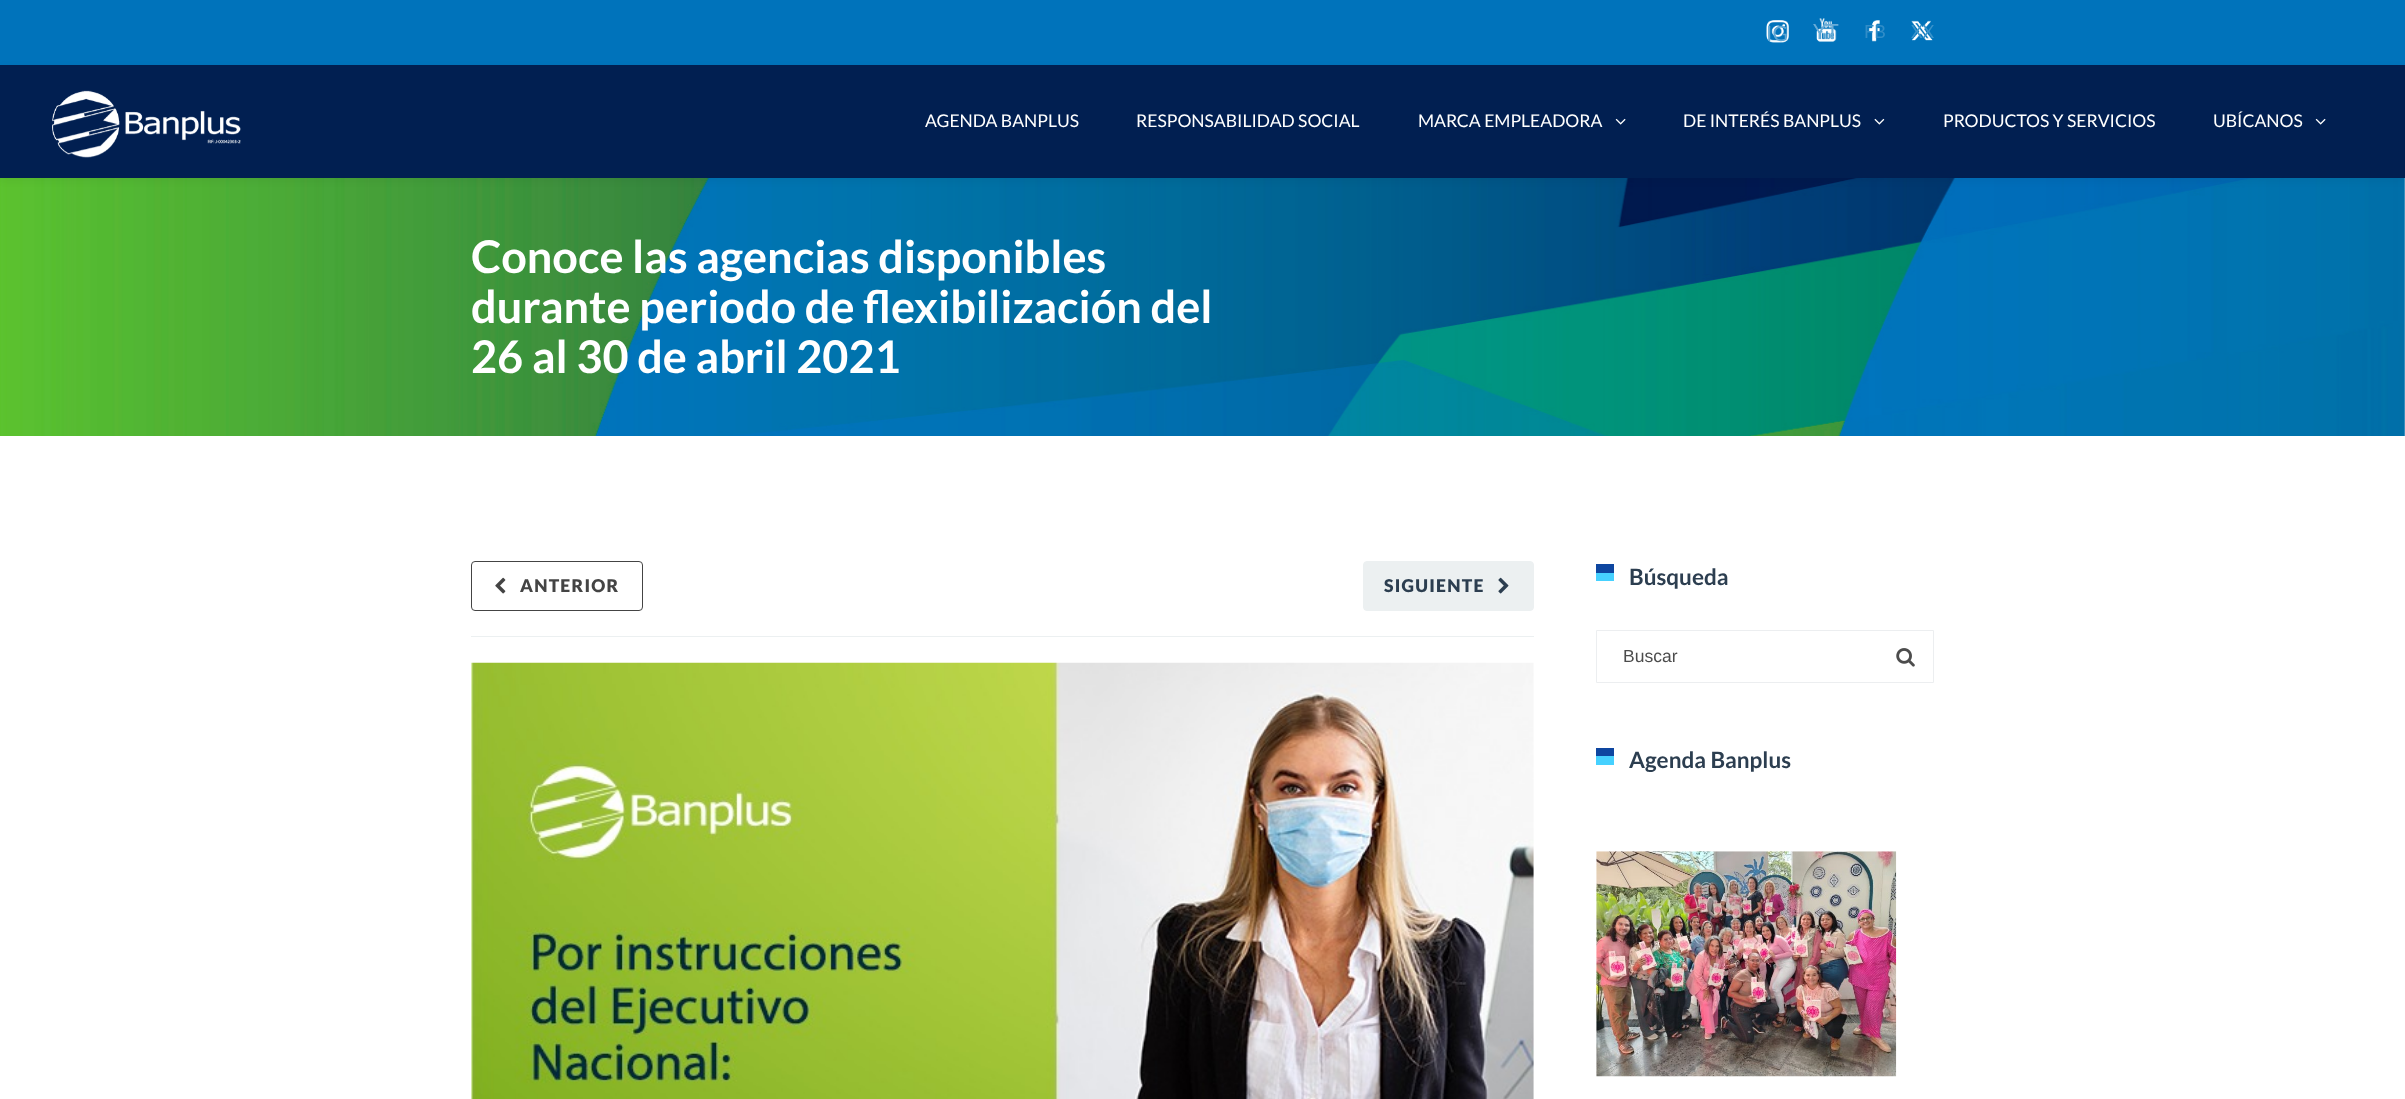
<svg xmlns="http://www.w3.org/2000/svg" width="2405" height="1099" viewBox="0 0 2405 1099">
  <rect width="100%" height="100%" fill="#fff"/>
  <path d="M0 0h2405v65H0z" fill="#0073bb"/>
  <image x="1766" y="20" width="23" height="23" href="img/1.png"/>
  <image x="1816" y="18" width="21" height="24" href="img/2.png"/>
  <image x="1868" y="20" width="12" height="22" href="img/3.png"/>
  <image x="1911" y="20" width="22" height="21" href="img/4.png"/>
  <image x="0" y="178" width="2405" height="258" href="img/8.png"/>
  <path d="M0 68h2405v112H0z" fill="#0000000d" filter="blur(4px)"/>
  <path d="M0 65h2405v113H0z" fill="#011f51"/>
  <image x="52" y="90" width="189" height="68" href="img/5.png"/>
  <image x="1615" y="118" width="11" height="7" href="img/6.png"/>
  <image x="1874" y="118" width="11" height="7" href="img/7.png"/>
  <image x="2315" y="118" width="11" height="7" href="img/6.png"/>
  <path d="M471 636h1063v1H471z" fill="#ecf0f1"/>
  <rect x="471.5" y="561.5" width="171" height="49" rx="3.5" fill="none" stroke="#444"/>
  <image x="495" y="577" width="11" height="17" href="img/9.png"/>
  <rect x="1363.5" y="561.5" width="170" height="49" rx="3.5" fill="#ecf0f1" stroke="#ecf0f1"/>
  <image x="1498" y="577" width="11" height="17" href="img/10.png"/>
  <image x="471" y="662" width="1063" height="437" href="img/11.png"/>
  <path d="M1596 564h18v9H1596z" fill="#0e46a0"/>
  <path d="M1596 573h18v8H1596z" fill="#46d1ff"/>
  <path d="M1596.5 630.5h337v52H1596.5z" fill="none" stroke="#eceef0"/>
  <image x="1896" y="648" width="19" height="19" href="img/12.png"/>
  <path d="M1596 748h18v8H1596z" fill="#0e46a0"/>
  <path d="M1596 756h18v9H1596z" fill="#46d1ff"/>
  <image x="1596" y="851" width="301" height="226" href="img/13.png"/>
  <text x="1766" y="41" font-family="Lato" font-size="21" fill="#5fa7d4">IG</text>
  <text x="1813" y="39" font-family="Lato" font-size="21" fill="#68acd7">YT</text>
  <text x="1864" y="38" font-family="Lato" font-size="18" fill="#308dc8">FB</text>
  <text x="1911" y="38" font-family="Lato" font-size="18" fill="#3993ca">XX</text>
  <g font-family="Lato" font-size="17.5" fill="#fff">
    <text x="925" y="127">AGENDA BANPLUS</text>
    <text x="1136" y="127">RESPONSABILIDAD SOCIAL</text>
    <text x="1418" y="127">MARCA EMPLEADORA</text>
    <text x="1683" y="127">DE INTERÉS BANPLUS</text>
    <text x="1943" y="127">PRODUCTOS Y SERVICIOS</text>
    <text x="2213" y="127">UBÍCANOS</text>
  </g>
  <g font-family="Lato" font-size="45" font-weight="bold" fill="#fff">
    <text x="471" y="273">Conoce las agencias disponibles</text>
    <text x="471" y="323">durante periodo de flexibilización del</text>
    <text x="471" y="373">26 al 30 de abril 2021</text>
  </g>
  <text x="520" y="592" font-family="Lato" font-size="17.5" font-weight="900" letter-spacing="1.25" fill="#444">ANTERIOR</text>
  <text x="1384" y="592" font-family="Lato" font-size="17.5" font-weight="900" letter-spacing="1.25" fill="#2c3e50">SIGUIENTE</text>
  <text x="1629" y="585" font-family="Lato" font-size="22.5" font-weight="bold" fill="#2c3e50">Búsqueda</text>
  <text x="1623" y="662" font-family="Liberation Sans" font-size="17.5" fill="#4c4c4c">Buscar</text>
  <text x="1629" y="768" font-family="Lato" font-size="22.5" font-weight="bold" fill="#2c3e50">Agenda Banplus</text>
</svg>
